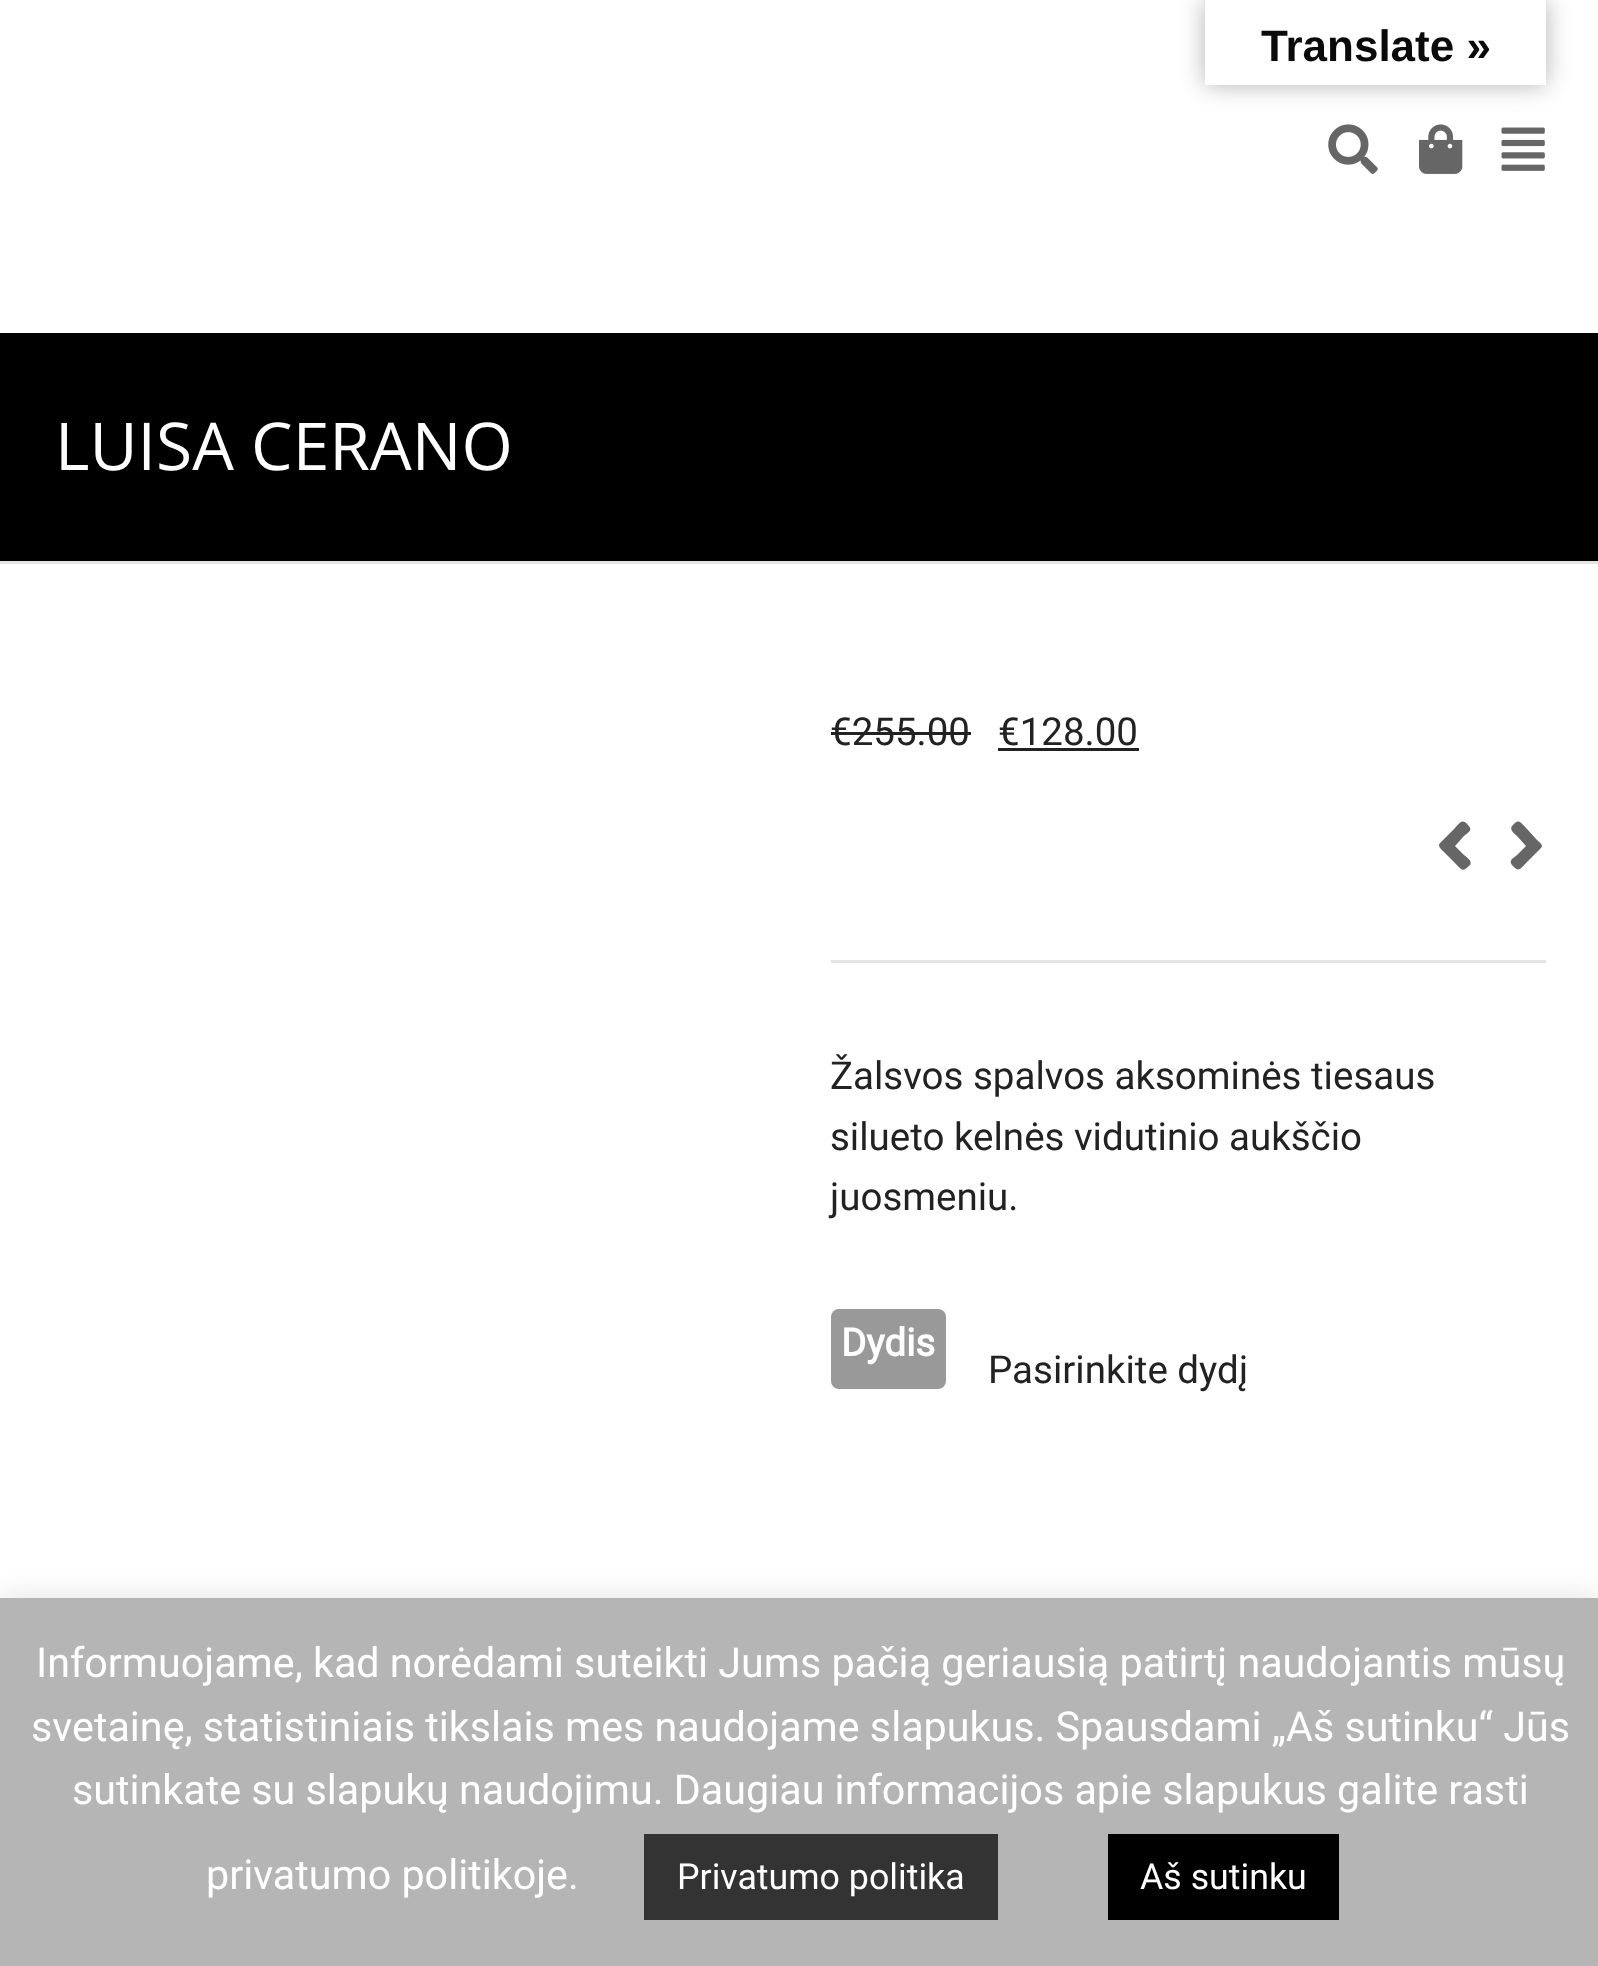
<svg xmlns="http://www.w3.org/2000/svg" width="1598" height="1966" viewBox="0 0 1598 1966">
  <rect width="100%" height="100%" fill="#fff"/>
  <path d="M1205 0h341v85H1205z" fill="#0000004d" filter="blur(12.5px)"/>
  <path d="M1205 0h341v85H1205z" fill="#fff"/>
  <image x="1328" y="124" width="50" height="50" href="img/1.png"/>
  <image x="1419" y="124" width="44" height="50" href="img/2.png"/>
  <image x="1501" y="127" width="44" height="44" href="img/3.png"/>
  <path d="M0 333h1598v228H0z" fill="#000"/>
  <path d="M0 561h1598v3H0z" fill="#e4e4e4"/>
  <path d="M831 960h715v3H831z" fill="#e4e4e4"/>
  <path d="M831 732h140v3H831z" fill="#222"/>
  <path d="M998 748h141v3H998z" fill="#222"/>
  <path d="M1440 843L1454 829C1460 823 1462 818 1468 825C1473 830 1469 832 1464 836L1455 846L1464 855C1466 857 1473 861 1470 865C1462 873 1462 870 1454 862L1444 852C1442 850 1437 846 1440 843Z" fill="#666"/>
  <path d="M1541 848L1527 862C1521 868 1519 873 1513 866C1508 861 1512 859 1517 855L1526 846L1517 836C1515 834 1509 830 1512 826C1519 818 1520 822 1527 829L1537 840C1539 842 1544 845 1541 848Z" fill="#666"/>
  <rect x="831" y="1309" width="115" height="80" rx="8" fill="#999"/>
  <path d="M0 1595h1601v369H0z" fill="#acabab4d" filter="blur(14px)"/>
  <path d="M0 1598h1598v368H0z" fill="#b5b5b5"/>
  <path d="M644 1834h354v86H644z" fill="#333"/>
  <path d="M1108 1834h231v86H1108z" fill="#000"/>
  <text x="1261" y="61" font-family="Liberation Sans" font-size="44" font-weight="bold" fill="#0a0a0a">Translate »</text>
  <text x="55" y="470" font-family="Open Sans" font-size="66" fill="#fff">LUISA CERANO</text>
  <g font-family="Roboto" font-size="38.5" fill="#222">
    <text x="830" y="745">€255.00</text>
    <text x="998" y="745">€128.00</text>
    <text x="830" y="1089">Žalsvos spalvos aksominės tiesaus</text>
    <text x="830" y="1150">silueto kelnės vidutinio aukščio</text>
    <text x="830" y="1210">juosmeniu.</text>
  </g>
  <text x="841" y="1356" font-family="Roboto" font-size="38.5" font-weight="bold" fill="#fff">Dydis</text>
  <text x="988" y="1383" font-family="Roboto" font-size="38.5" fill="#222">Pasirinkite dydį</text>
  <g font-family="Roboto" font-size="41.25" fill="#fff">
    <text x="36" y="1677">Informuojame, kad norėdami suteikti Jums pačią geriausią patirtį naudojantis mūsų</text>
    <text x="31" y="1741">svetainę, statistiniais tikslais mes naudojame slapukus. Spausdami „Aš sutinku“ Jūs</text>
    <text x="72" y="1804">sutinkate su slapukų naudojimu. Daugiau informacijos apie slapukus galite rasti</text>
    <text x="206" y="1889">privatumo politikoje.</text>
  </g>
  <g font-family="Roboto" font-size="35.75" fill="#fff">
    <text x="677" y="1889">Privatumo politika</text>
    <text x="1140" y="1889">Aš sutinku</text>
  </g>
</svg>
